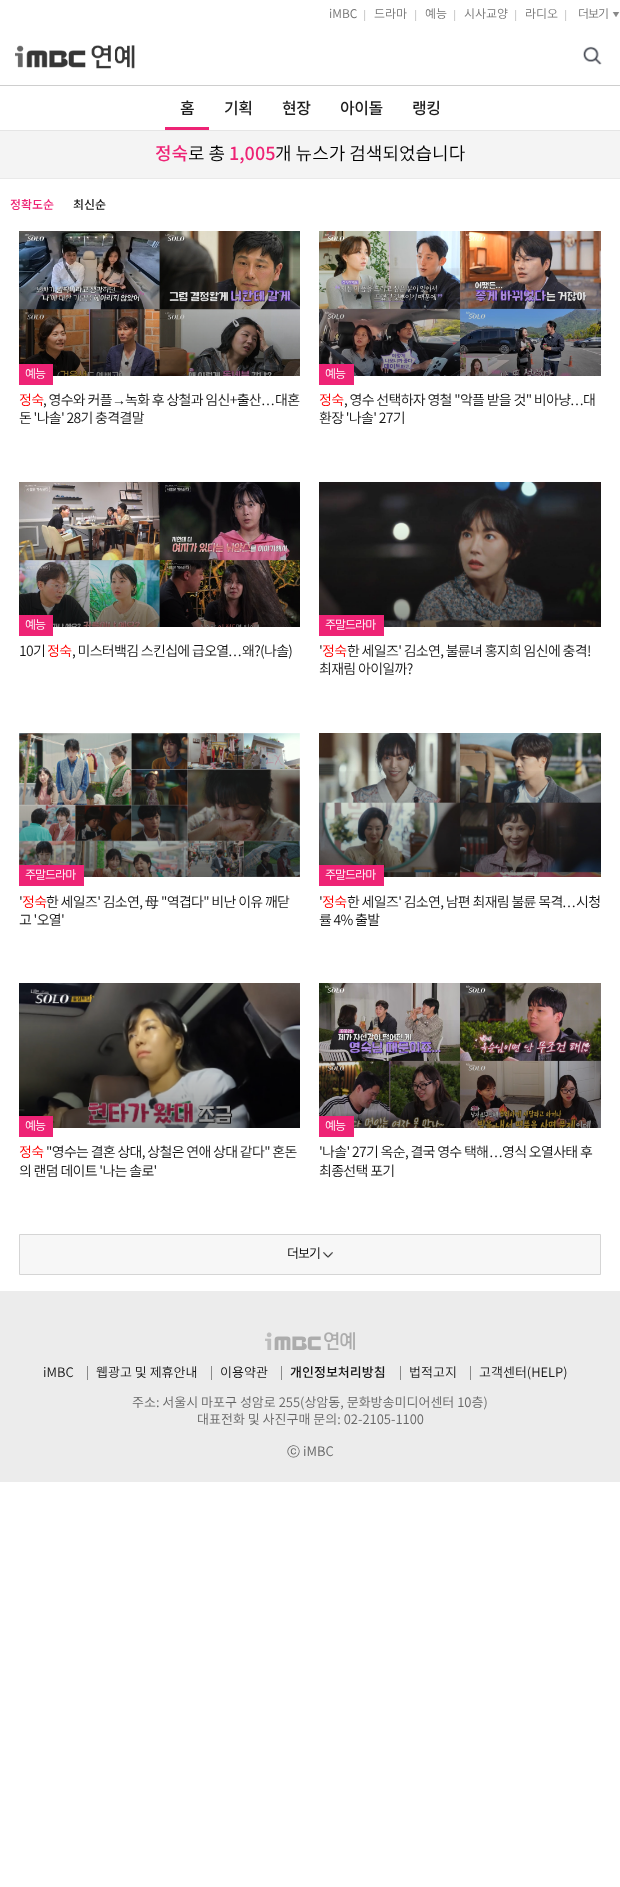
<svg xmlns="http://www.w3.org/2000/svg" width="620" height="1887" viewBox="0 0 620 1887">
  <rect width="100%" height="100%" fill="#fff"/>
  <image x="364" y="10" width="2" height="11" href="img/1.png"/>
  <image x="415" y="10" width="2" height="11" href="img/1.png"/>
  <image x="454" y="10" width="2" height="11" href="img/1.png"/>
  <image x="515" y="10" width="2" height="11" href="img/1.png"/>
  <image x="565" y="10" width="2" height="11" href="img/1.png"/>
  <image x="612" y="12" width="8" height="5" href="img/2.png"/>
  <path d="M0 85h620v1H0z" fill="#cecece"/>
  <image x="15" y="45" width="71" height="23" href="img/3.png"/>
  <image x="91" y="45" width="44" height="24" href="img/4.png"/>
  <image x="583" y="46" width="19" height="19" href="img/5.png"/>
  <path d="M165 127h44v3H165z" fill="#ee2375"/>
  <path d="M0 130h620v1H0z" fill="#e5e5e5"/>
  <path d="M0 131h620v47H0z" fill="#f4f4f4"/>
  <path d="M0 178h620v1H0z" fill="#e9e9e9"/>
  <image x="19" y="231" width="281" height="145" href="img/6.png"/>
  <image x="19" y="268" width="281" height="108" href="img/7.png"/>
  <path d="M19 364h34v21H19z" fill="#ee2375"/>
  <image x="319" y="231" width="282" height="145" href="img/8.png"/>
  <image x="319" y="268" width="282" height="108" href="img/9.png"/>
  <path d="M319 364h35v21H319z" fill="#ee2375"/>
  <image x="19" y="482" width="281" height="145" href="img/10.png"/>
  <image x="19" y="519" width="281" height="108" href="img/11.png"/>
  <path d="M19 615h34v21H19z" fill="#ee2375"/>
  <image x="319" y="482" width="282" height="145" href="img/12.png"/>
  <image x="319" y="520" width="282" height="107" href="img/13.png"/>
  <path d="M319 615h65v21H319z" fill="#ee2375"/>
  <image x="19" y="733" width="281" height="144" href="img/14.png"/>
  <image x="19" y="771" width="281" height="106" href="img/15.png"/>
  <path d="M19 865h65v21H19z" fill="#ee2375"/>
  <image x="319" y="733" width="282" height="144" href="img/16.png"/>
  <image x="319" y="771" width="282" height="106" href="img/17.png"/>
  <path d="M319 865h65v21H319z" fill="#ee2375"/>
  <image x="19" y="983" width="281" height="145" href="img/18.png"/>
  <image x="19" y="1020" width="281" height="108" href="img/19.png"/>
  <path d="M19 1116h34v21H19z" fill="#ee2375"/>
  <image x="319" y="983" width="282" height="145" href="img/20.png"/>
  <image x="319" y="1020" width="282" height="108" href="img/21.png"/>
  <path d="M319 1116h35v21H319z" fill="#ee2375"/>
  <path d="M19.5 1234.5h581v40H19.5z" fill="#f7f7f7" stroke="#d5d5d5"/>
  <image x="323" y="1252" width="10" height="6" href="img/22.png"/>
  <path d="M0 1291h620v191H0z" fill="#ececec"/>
  <image x="265" y="1332" width="90" height="18" href="img/23.png"/>
  <path d="M87 1366h1v14H87z" fill="#898989"/>
  <path d="M211 1366h1v14H211z" fill="#898989"/>
  <path d="M281 1366h1v14H281z" fill="#898989"/>
  <path d="M400 1366h1v14H400z" fill="#898989"/>
  <path d="M470 1366h1v14H470z" fill="#898989"/>
  <g font-family="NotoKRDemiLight" font-size="12" font-weight="300" fill="#757575">
    <text x="329" y="18">iMBC</text>
    <text x="374" y="18">드라마</text>
    <text x="425" y="18">예능</text>
    <text x="464" y="18">시사교양</text>
    <text x="525" y="18">라디오</text>
  </g>
  <text x="578" y="18" font-family="NotoKRDemiLight" font-size="12" font-weight="300" letter-spacing="-1" fill="#757575">더보기</text>
  <g font-family="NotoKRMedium" font-size="16" font-weight="500" letter-spacing="-0.5" fill="#1e1e1e">
    <text x="180" y="114">홈</text>
    <text x="224" y="114">기획</text>
    <text x="282" y="114">현장</text>
    <text x="340" y="114">아이돌</text>
    <text x="412" y="114">랭킹</text>
  </g>
  <text x="155" y="160" font-family="NotoKRMedium" font-size="18" font-weight="500" fill="#ee2375">정숙</text>
  <text x="188" y="160" font-family="NotoKRDemiLight" font-size="18" font-weight="300" fill="#000">로 총</text>
  <text x="229" y="160" font-family="NotoKRMedium" font-size="18" font-weight="500" fill="#ee2375">1,005</text>
  <text x="275" y="160" font-family="NotoKRDemiLight" font-size="18" font-weight="300" fill="#000">개 뉴스가 검색되었습니다</text>
  <text x="10" y="209" font-family="NotoKRMedium" font-size="12" font-weight="500" fill="#ee2375">정확도순</text>
  <text x="73" y="209" font-family="NotoKRMedium" font-size="12" font-weight="500" fill="#141414">최신순</text>
  <text x="25" y="378" font-family="NotoKRDemiLight" font-size="12" font-weight="300" letter-spacing="-1" fill="#fff">예능</text>
  <text x="19" y="405" font-family="NotoKRDemiLight" font-size="14" font-weight="300" letter-spacing="-0.7" fill="#f00">정숙</text>
  <text x="43" y="405" font-family="NotoKRDemiLight" font-size="14" font-weight="300" letter-spacing="-0.7" fill="#141414">, 영수와 커플</text>
  <text x="112" y="405" font-family="Liberation Serif" font-size="14" letter-spacing="-0.7" fill="#141414">→</text>
  <text x="125" y="405" font-family="NotoKRDemiLight" font-size="14" font-weight="300" letter-spacing="-0.7" fill="#141414">녹화 후 상철과 임신+출산</text>
  <text x="261" y="405" font-family="Liberation Serif" font-size="14" letter-spacing="-0.7" fill="#141414">…</text>
  <g font-family="NotoKRDemiLight" font-size="14" font-weight="300" letter-spacing="-0.7" fill="#141414">
    <text x="275" y="405">대혼</text>
    <text x="19" y="423">돈 '나솔' 28기 충격결말</text>
  </g>
  <text x="325" y="378" font-family="NotoKRDemiLight" font-size="12" font-weight="300" letter-spacing="-1" fill="#fff">예능</text>
  <text x="319" y="405" font-family="NotoKRDemiLight" font-size="14" font-weight="300" letter-spacing="-0.7" fill="#f00">정숙</text>
  <text x="344" y="405" font-family="NotoKRDemiLight" font-size="14" font-weight="300" letter-spacing="-0.7" fill="#141414">, 영수 선택하자 영철 "악플 받을 것" 비아냥</text>
  <text x="570" y="405" font-family="Liberation Serif" font-size="14" letter-spacing="-0.7" fill="#141414">…</text>
  <g font-family="NotoKRDemiLight" font-size="14" font-weight="300" letter-spacing="-0.7" fill="#141414">
    <text x="583" y="405">대</text>
    <text x="319" y="423">환장 '나솔' 27기</text>
  </g>
  <text x="25" y="629" font-family="NotoKRDemiLight" font-size="12" font-weight="300" letter-spacing="-1" fill="#fff">예능</text>
  <text x="19" y="656" font-family="NotoKRDemiLight" font-size="14" font-weight="300" letter-spacing="-0.7" fill="#141414">10기</text>
  <text x="47" y="656" font-family="NotoKRDemiLight" font-size="14" font-weight="300" letter-spacing="-0.7" fill="#f00">정숙</text>
  <text x="72" y="656" font-family="NotoKRDemiLight" font-size="14" font-weight="300" letter-spacing="-0.7" fill="#141414">, 미스터백김 스킨십에 급오열</text>
  <text x="228" y="656" font-family="Liberation Serif" font-size="14" letter-spacing="-0.7" fill="#141414">…</text>
  <text x="242" y="656" font-family="NotoKRDemiLight" font-size="14" font-weight="300" letter-spacing="-0.7" fill="#141414">왜?(나솔)</text>
  <text x="325" y="629" font-family="NotoKRDemiLight" font-size="12" font-weight="300" letter-spacing="-1" fill="#fff">주말드라마</text>
  <text x="319" y="656" font-family="NotoKRDemiLight" font-size="14" font-weight="300" letter-spacing="-0.7" fill="#141414">'</text>
  <text x="322" y="656" font-family="NotoKRDemiLight" font-size="14" font-weight="300" letter-spacing="-0.7" fill="#f00">정숙</text>
  <g font-family="NotoKRDemiLight" font-size="14" font-weight="300" letter-spacing="-0.7" fill="#141414">
    <text x="347" y="656">한 세일즈' 김소연, 불륜녀 홍지희 임신에 충격!</text>
    <text x="319" y="674">최재림 아이일까?</text>
  </g>
  <text x="25" y="879" font-family="NotoKRDemiLight" font-size="12" font-weight="300" letter-spacing="-1" fill="#fff">주말드라마</text>
  <text x="19" y="907" font-family="NotoKRDemiLight" font-size="14" font-weight="300" letter-spacing="-0.7" fill="#141414">'</text>
  <text x="22" y="907" font-family="NotoKRDemiLight" font-size="14" font-weight="300" letter-spacing="-0.7" fill="#f00">정숙</text>
  <text x="46" y="907" font-family="NotoKRDemiLight" font-size="14" font-weight="300" letter-spacing="-0.7" fill="#141414">한 세일즈' 김소연,</text>
  <text x="145" y="907" font-family="WenQuanYi Zen Hei" font-size="14" font-weight="500" letter-spacing="-0.7" fill="#141414">母</text>
  <g font-family="NotoKRDemiLight" font-size="14" font-weight="300" letter-spacing="-0.7" fill="#141414">
    <text x="161" y="907">"역겹다" 비난 이유 깨닫</text>
    <text x="19" y="925">고 '오열'</text>
  </g>
  <text x="325" y="879" font-family="NotoKRDemiLight" font-size="12" font-weight="300" letter-spacing="-1" fill="#fff">주말드라마</text>
  <text x="319" y="907" font-family="NotoKRDemiLight" font-size="14" font-weight="300" letter-spacing="-0.7" fill="#141414">'</text>
  <text x="322" y="907" font-family="NotoKRDemiLight" font-size="14" font-weight="300" letter-spacing="-0.7" fill="#f00">정숙</text>
  <g font-family="NotoKRDemiLight" font-size="14" font-weight="300" letter-spacing="-0.7" fill="#141414">
    <text x="347" y="907">한 세일즈' 김소연, 남편 최재림 불륜 목격</text>
    <text x="576" y="907">시청</text>
  </g>
  <text x="562" y="907" font-family="Liberation Serif" font-size="14" letter-spacing="-0.7" fill="#141414">…</text>
  <text x="319" y="925" font-family="NotoKRDemiLight" font-size="14" font-weight="300" letter-spacing="-0.7" fill="#141414">률 4% 출발</text>
  <text x="25" y="1130" font-family="NotoKRDemiLight" font-size="12" font-weight="300" letter-spacing="-1" fill="#fff">예능</text>
  <text x="19" y="1157" font-family="NotoKRDemiLight" font-size="14" font-weight="300" letter-spacing="-0.7" fill="#f00">정숙</text>
  <g font-family="NotoKRDemiLight" font-size="14" font-weight="300" letter-spacing="-0.7" fill="#141414">
    <text x="46" y="1157">"영수는 결혼 상대, 상철은 연애 상대 같다" 혼돈</text>
    <text x="19" y="1176">의 랜덤 데이트 '나는 솔로'</text>
  </g>
  <text x="325" y="1130" font-family="NotoKRDemiLight" font-size="12" font-weight="300" letter-spacing="-1" fill="#fff">예능</text>
  <text x="319" y="1157" font-family="NotoKRDemiLight" font-size="14" font-weight="300" letter-spacing="-0.7" fill="#141414">'나솔' 27기 옥순, 결국 영수 택해</text>
  <text x="489" y="1157" font-family="Liberation Serif" font-size="14" letter-spacing="-0.7" fill="#141414">…</text>
  <g font-family="NotoKRDemiLight" font-size="14" font-weight="300" letter-spacing="-0.7" fill="#141414">
    <text x="502" y="1157">영식 오열사태 후</text>
    <text x="319" y="1176">최종선택 포기</text>
  </g>
  <text x="287" y="1258" font-family="NotoKRDemiLight" font-size="13" font-weight="300" letter-spacing="-1" fill="#000">더보기</text>
  <g font-family="NotoKRDemiLight" font-size="13" font-weight="300" fill="#141414">
    <text x="43" y="1377">iMBC</text>
    <text x="96" y="1377">웹광고 및 제휴안내</text>
    <text x="220" y="1377">이용약관</text>
  </g>
  <text x="290" y="1377" font-family="NotoKRMedium" font-size="13" font-weight="500" fill="#141414">개인정보처리방침</text>
  <g font-family="NotoKRDemiLight" font-size="13" font-weight="300" fill="#141414">
    <text x="409" y="1377">법적고지</text>
    <text x="479" y="1377">고객센터(HELP)</text>
  </g>
  <g font-family="NotoKRDemiLight" font-size="13" font-weight="300" fill="#666">
    <text x="132" y="1407">주소: 서울시 마포구 성암로 255(상암동, 문화방송미디어센터 10층)</text>
    <text x="197" y="1424">대표전화 및 사진구매 문의: 02-2105-1100</text>
  </g>
  <text x="287" y="1456" font-family="WenQuanYi Zen Hei" font-size="13" font-weight="500" fill="#666">ⓒ</text>
  <text x="303" y="1456" font-family="NotoKRDemiLight" font-size="13" font-weight="300" fill="#666">iMBC</text>
</svg>
